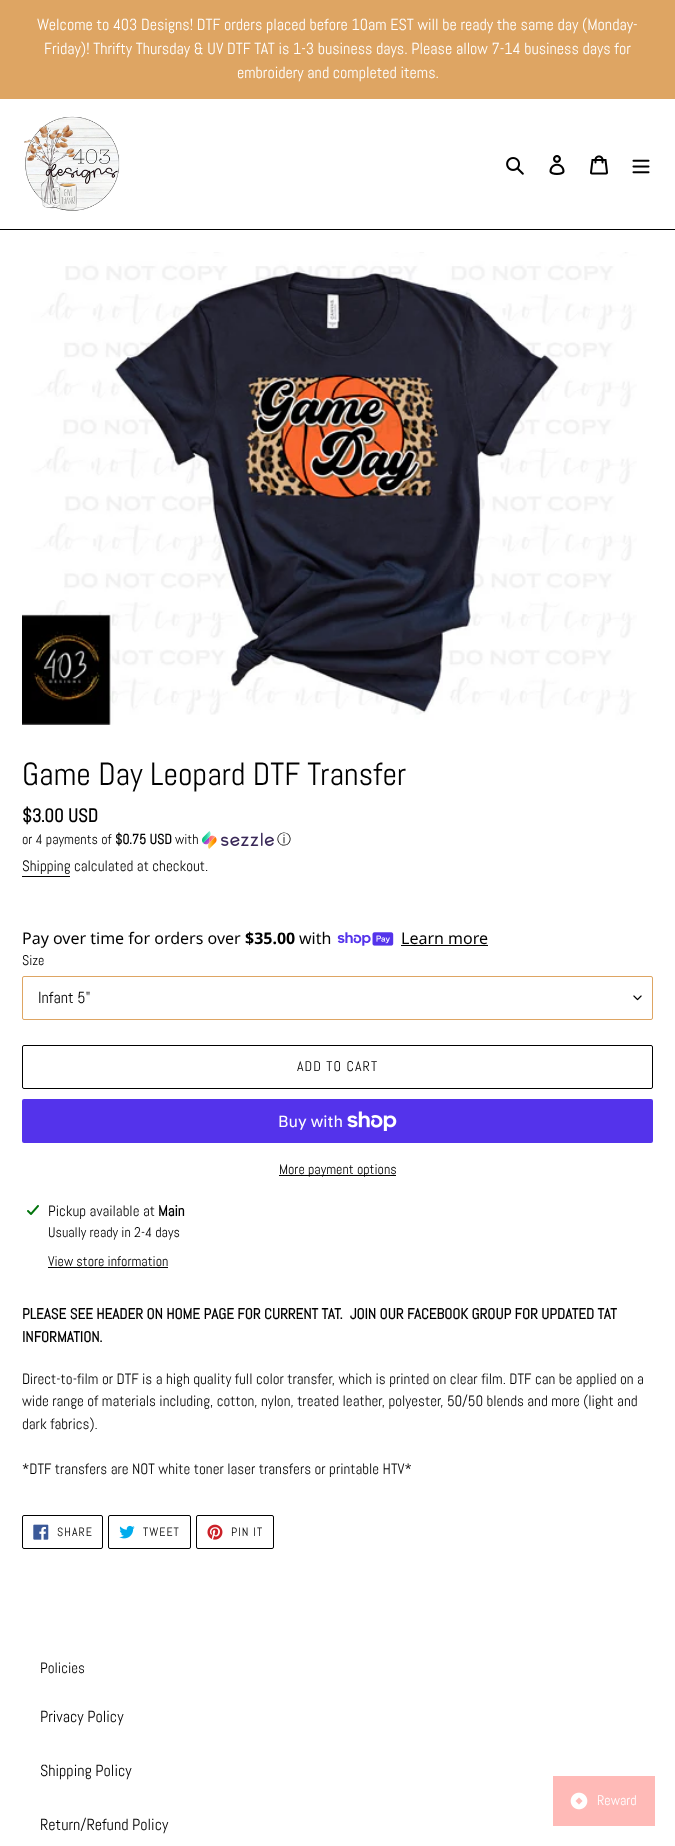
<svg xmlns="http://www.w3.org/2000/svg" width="675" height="1846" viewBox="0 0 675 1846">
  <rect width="100%" height="100%" fill="#fff"/>
  <path d="M0 0h675v99H0z" fill="#dea563"/>
  <path d="M0 229h675v1H0z" fill="#000"/>
  <image x="24" y="116" width="96" height="95" href="img/1.png"/>
  <image x="506" y="157" width="18" height="18" href="img/2.png"/>
  <image x="549" y="155" width="16" height="20" href="img/3.png"/>
  <image x="590" y="155" width="18" height="20" href="img/4.png"/>
  <image x="632" y="159" width="18" height="15" href="img/5.png"/>
  <image x="22" y="252" width="615" height="473" href="img/6.png"/>
  <image x="202" y="831" width="72" height="18" href="img/7.png"/>
  <path d="M22 876h48v1H22z" fill="#000"/>
  <image x="337" y="932" width="57" height="14" href="img/8.png"/>
  <path d="M401 945h87v1H401z" fill="#000"/>
  <image x="633" y="995" width="9" height="6" href="img/9.png"/>
  <rect x="22.5" y="976.5" width="630" height="43" rx="1.5" fill="none" stroke="#dea563"/>
  <rect x="22.5" y="1045.5" width="630" height="43" rx="1.5" fill="none" stroke="#000"/>
  <rect x="22" y="1099" width="631" height="44" rx="2" fill="#5433eb"/>
  <image x="347" y="1111" width="50" height="20" href="img/10.png"/>
  <path d="M279 1175h117v1H279z" fill="#000"/>
  <image x="27" y="1205" width="12" height="10" href="img/11.png"/>
  <path d="M48 1267h120v1H48z" fill="#000"/>
  <rect x="22.5" y="1515.5" width="80" height="33" rx="1.5" fill="none" stroke="#000"/>
  <image x="33" y="1524" width="16" height="16" href="img/12.png"/>
  <rect x="108.5" y="1515.5" width="82" height="33" rx="1.5" fill="none" stroke="#000"/>
  <image x="119" y="1525" width="16" height="14" href="img/13.png"/>
  <rect x="196.5" y="1515.5" width="77" height="33" rx="1.5" fill="none" stroke="#000"/>
  <image x="207" y="1524" width="16" height="16" href="img/14.png"/>
  <path d="M553 1776h102v50H553z" fill="#ffbab7"/>
  <image x="570" y="1792" width="18" height="18" href="img/15.png"/>
  <g font-family="Abel" font-size="16" fill="#fff">
    <text x="37" y="30">Welcome to 403 Designs! DTF orders placed before 10am EST will be ready the same day (Monday-</text>
    <text x="44" y="54">Friday)! Thrifty Thursday &amp; UV DTF TAT is 1-3 business days. Please allow 7-14 business days for</text>
    <text x="237" y="78">embroidery and completed items.</text>
  </g>
  <text x="22" y="785" font-family="Abel" font-size="32" fill="#000">Game Day Leopard DTF Transfer</text>
  <text x="22" y="822" font-family="Abel" font-size="18.75" font-weight="bold" fill="#000">$3.00 USD</text>
  <text x="22" y="844" font-family="Abel" font-size="14" fill="#000">or 4 payments of</text>
  <text x="115" y="844" font-family="Abel" font-size="14" font-weight="bold" fill="#000">$0.75 USD</text>
  <text x="175" y="844" font-family="Abel" font-size="14" fill="#000">with</text>
  <text x="277" y="844" font-family="WenQuanYi Zen Hei" font-size="14" font-weight="500" fill="#000">ⓘ</text>
  <text x="22" y="871" font-family="Abel" font-size="15" fill="#000">Shipping calculated at checkout.</text>
  <text x="22" y="944" font-family="Noto Sans" font-size="16" fill="#000">Pay over time for orders over</text>
  <text x="245" y="944" font-family="Noto Sans" font-size="16" font-weight="bold" fill="#000">$35.00</text>
  <g font-family="Noto Sans" font-size="16" fill="#000">
    <text x="299" y="944">with</text>
    <text x="401" y="944">Learn more</text>
  </g>
  <text x="22" y="965" font-family="Abel" font-size="14" fill="#000">Size</text>
  <text x="38" y="1003" font-family="Abel" font-size="16" fill="#000">Infant 5"</text>
  <text x="297" y="1071" font-family="Abel" font-size="14" letter-spacing="1.1" fill="#000">ADD TO CART</text>
  <text x="278" y="1127" font-family="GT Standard" font-size="16" fill="#fff">Buy with</text>
  <text x="279" y="1174" font-family="Abel" font-size="14" fill="#000">More payment options</text>
  <text x="48" y="1216" font-family="Abel" font-size="15" fill="#000">Pickup available at</text>
  <text x="158" y="1216" font-family="Abel" font-size="15" font-weight="bold" fill="#000">Main</text>
  <g font-family="Abel" font-size="14" fill="#000">
    <text x="48" y="1237">Usually ready in 2-4 days</text>
    <text x="48" y="1266">View store information</text>
  </g>
  <g font-family="Abel" font-size="15" font-weight="bold" fill="#000">
    <text x="22" y="1319" xml:space="preserve">PLEASE SEE HEADER ON HOME PAGE FOR CURRENT TAT.  JOIN OUR FACEBOOK GROUP FOR UPDATED TAT</text>
    <text x="22" y="1342">INFORMATION.</text>
  </g>
  <g font-family="Abel" font-size="15" fill="#000">
    <text x="22" y="1384">Direct-to-film or DTF is a high quality full color transfer, which is printed on clear film. DTF can be applied on a</text>
    <text x="22" y="1406">wide range of materials including, cotton, nylon, treated leather, polyester, 50/50 blends and more (light and</text>
    <text x="22" y="1429">dark fabrics).</text>
    <text x="22" y="1474">*DTF transfers are NOT white toner laser transfers or printable HTV*</text>
  </g>
  <g font-family="Abel" font-size="12" letter-spacing="1" fill="#000">
    <text x="57" y="1536">SHARE</text>
    <text x="143" y="1536">TWEET</text>
    <text x="231" y="1536">PIN IT</text>
  </g>
  <text x="40" y="1673" font-family="Abel" font-size="15" fill="#000">Policies</text>
  <g font-family="Abel" font-size="16" fill="#000">
    <text x="40" y="1722">Privacy Policy</text>
    <text x="40" y="1776">Shipping Policy</text>
    <text x="40" y="1830">Return/Refund Policy</text>
  </g>
  <text x="597" y="1805" font-family="Abel" font-size="14" fill="#fff">Reward</text>
</svg>
